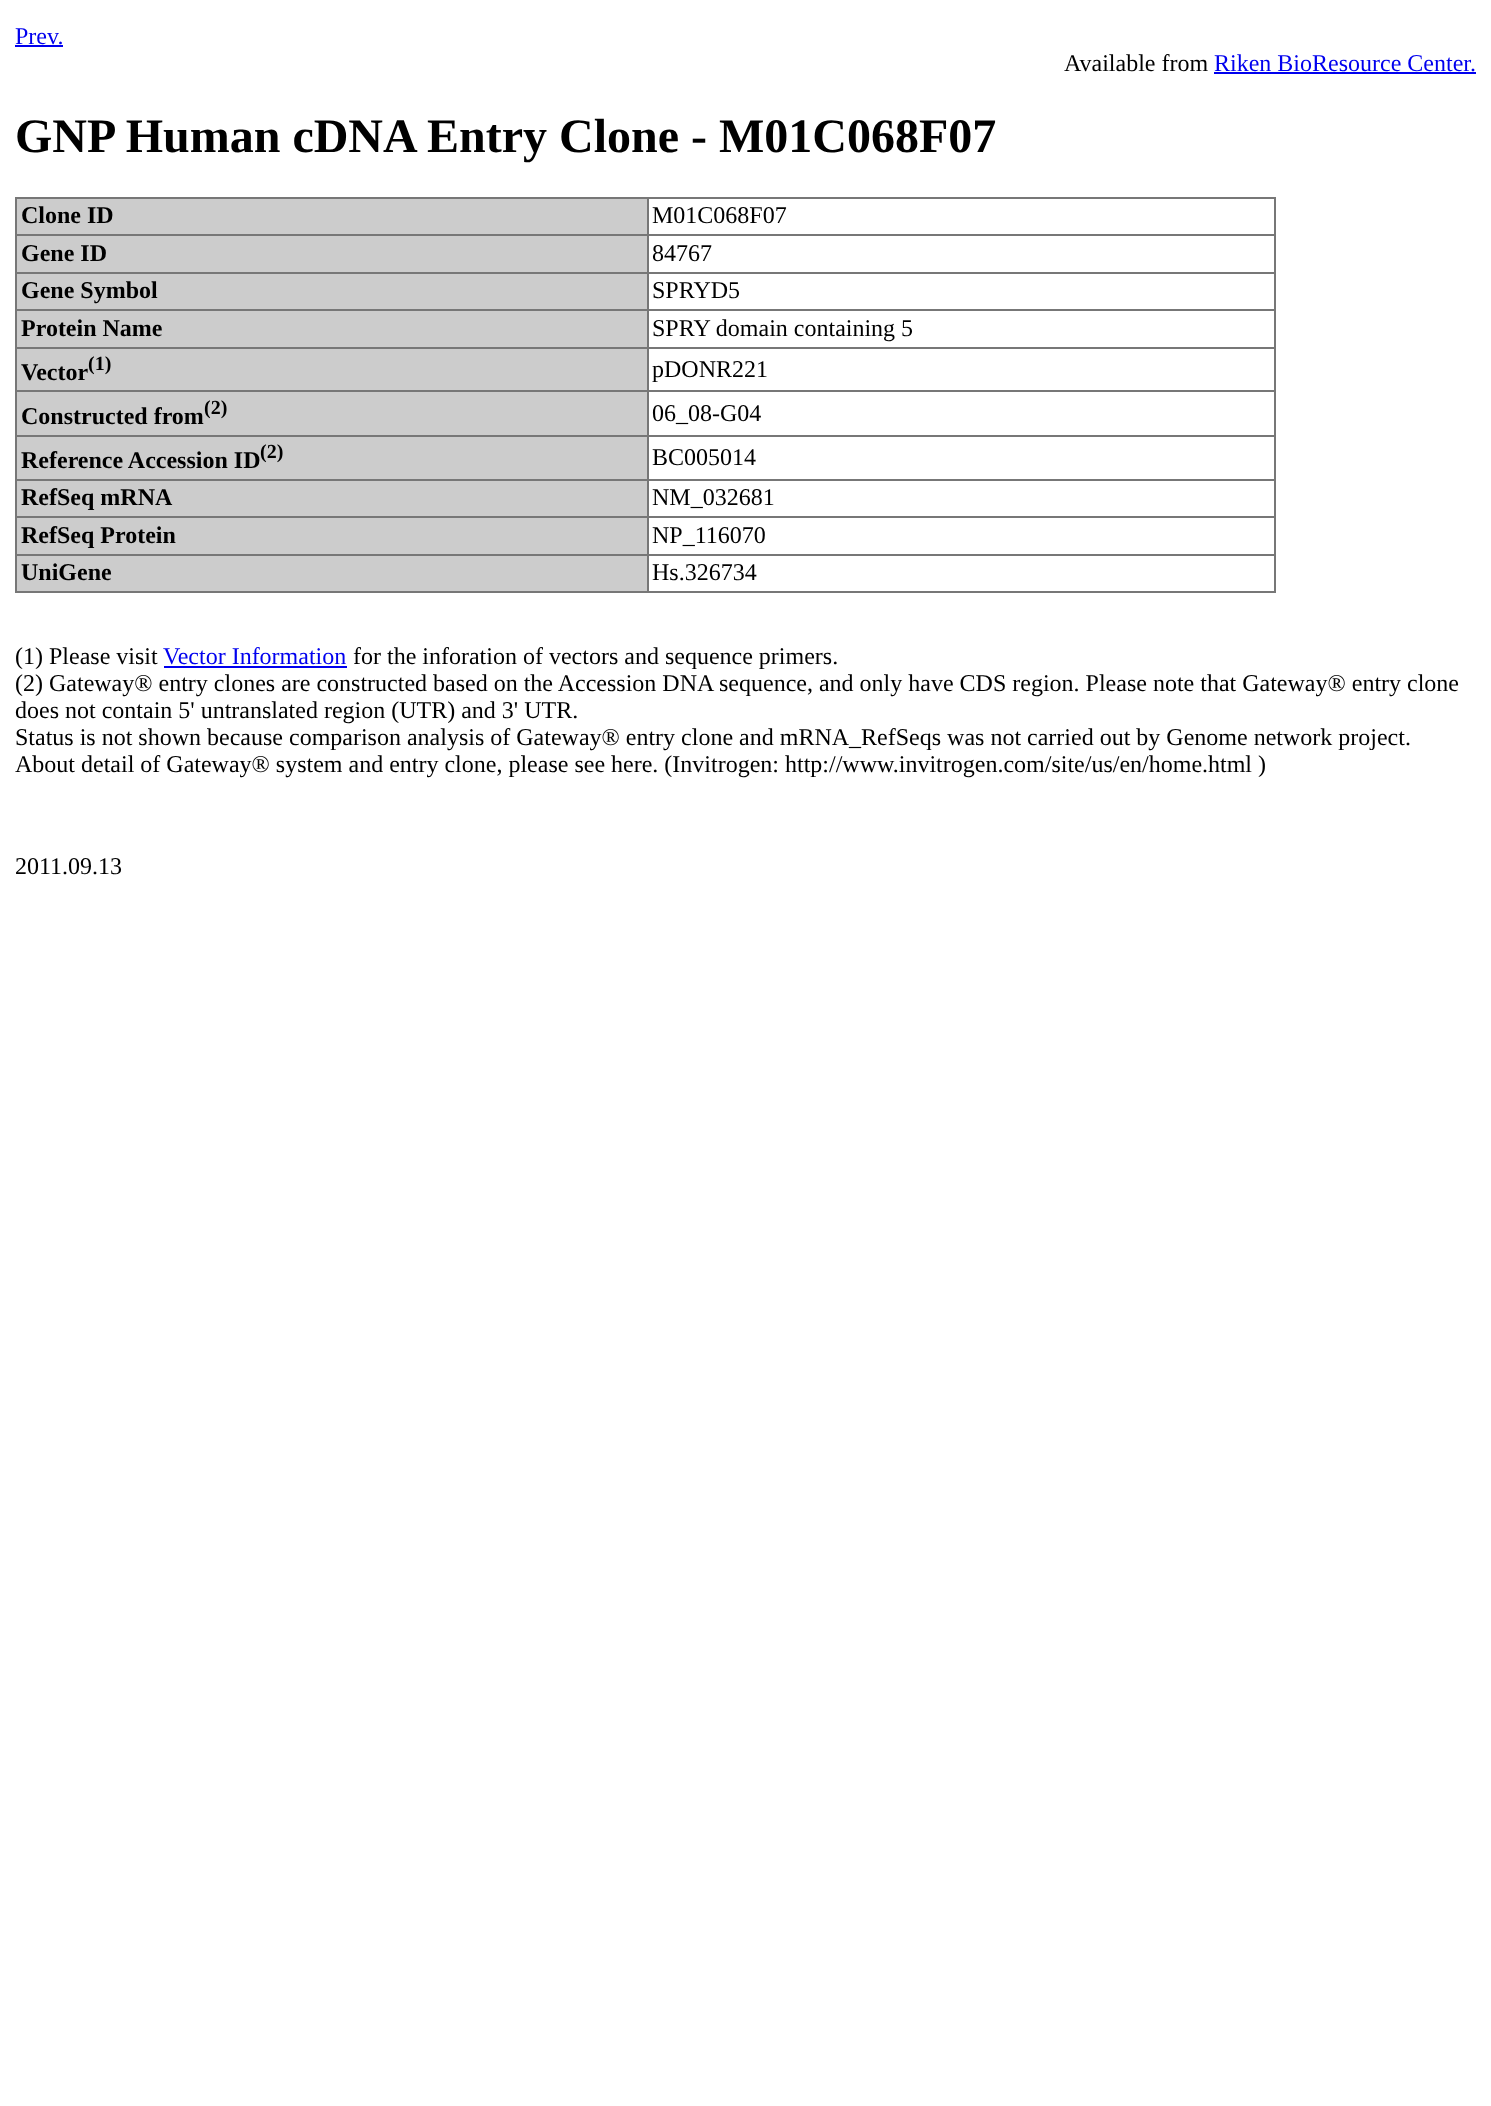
<svg xmlns="http://www.w3.org/2000/svg" width="1491" height="2106" viewBox="0 0 1491 2106">
  <rect width="100%" height="100%" fill="#fff"/>
  <path d="M15 45h48v2H15z" fill="#00e"/>
  <path d="M1214 72h262v2H1214z" fill="#00e"/>
  <path d="M15 197h1260v2H15z" fill="#777"/>
  <path d="M1274 197h2v396H1274z" fill="#777"/>
  <path d="M15 591h1260v2H15z" fill="#777"/>
  <path d="M15 197h2v396H15z" fill="#777"/>
  <path d="M17 199h630v35H17z" fill="#ccc"/>
  <path d="M647 234h628v2H647z" fill="#777"/>
  <path d="M647 272h628v2H647z" fill="#777"/>
  <path d="M647 309h628v2H647z" fill="#777"/>
  <path d="M647 347h628v2H647z" fill="#777"/>
  <path d="M647 390h628v2H647z" fill="#777"/>
  <path d="M647 435h628v2H647z" fill="#777"/>
  <path d="M647 479h628v2H647z" fill="#777"/>
  <path d="M647 516h628v2H647z" fill="#777"/>
  <path d="M647 554h628v2H647z" fill="#777"/>
  <path d="M647 554h2v39H647z" fill="#777"/>
  <path d="M15 554h633v2H15z" fill="#777"/>
  <path d="M647 516h2v39H647z" fill="#777"/>
  <path d="M15 516h633v2H15z" fill="#777"/>
  <path d="M647 479h2v39H647z" fill="#777"/>
  <path d="M15 479h633v2H15z" fill="#777"/>
  <path d="M647 435h2v45H647z" fill="#777"/>
  <path d="M15 435h633v2H15z" fill="#777"/>
  <path d="M647 390h2v47H647z" fill="#777"/>
  <path d="M15 390h633v2H15z" fill="#777"/>
  <path d="M647 347h2v45H647z" fill="#777"/>
  <path d="M15 347h633v2H15z" fill="#777"/>
  <path d="M647 309h2v39H647z" fill="#777"/>
  <path d="M15 309h633v2H15z" fill="#777"/>
  <path d="M647 272h2v39H647z" fill="#777"/>
  <path d="M15 272h633v2H15z" fill="#777"/>
  <path d="M647 234h2v39H647z" fill="#777"/>
  <path d="M15 234h633v2H15z" fill="#777"/>
  <path d="M647 197h2v39H647z" fill="#777"/>
  <path d="M17 236h630v36H17z" fill="#ccc"/>
  <path d="M17 274h630v35H17z" fill="#ccc"/>
  <path d="M17 311h630v36H17z" fill="#ccc"/>
  <path d="M17 349h630v41H17z" fill="#ccc"/>
  <path d="M17 392h630v43H17z" fill="#ccc"/>
  <path d="M17 437h630v42H17z" fill="#ccc"/>
  <path d="M17 481h630v35H17z" fill="#ccc"/>
  <path d="M17 518h630v36H17z" fill="#ccc"/>
  <path d="M17 556h630v35H17z" fill="#ccc"/>
  <path d="M164 666h183v2H164z" fill="#00e"/>
  <text x="15" y="44" font-family="Liberation Serif" font-size="24" fill="#00e">Prev.</text>
  <text x="1064" y="71" font-family="Liberation Serif" font-size="24" fill="#000">Available from</text>
  <text x="1214" y="71" font-family="Liberation Serif" font-size="24" fill="#00e">Riken BioResource Center.</text>
  <text x="15" y="152" font-family="Liberation Serif" font-size="48" font-weight="bold" fill="#000">GNP Human cDNA Entry Clone - M01C068F07</text>
  <text x="21" y="223" font-family="Liberation Serif" font-size="24" font-weight="bold" fill="#000">Clone ID</text>
  <text x="652" y="223" font-family="Liberation Serif" font-size="24" fill="#000">M01C068F07</text>
  <text x="21" y="261" font-family="Liberation Serif" font-size="24" font-weight="bold" fill="#000">Gene ID</text>
  <text x="652" y="261" font-family="Liberation Serif" font-size="24" fill="#000">84767</text>
  <text x="21" y="298" font-family="Liberation Serif" font-size="24" font-weight="bold" fill="#000">Gene Symbol</text>
  <text x="652" y="298" font-family="Liberation Serif" font-size="24" fill="#000">SPRYD5</text>
  <text x="21" y="336" font-family="Liberation Serif" font-size="24" font-weight="bold" fill="#000">Protein Name</text>
  <text x="652" y="336" font-family="Liberation Serif" font-size="24" fill="#000">SPRY domain containing 5</text>
  <text x="21" y="380" font-family="Liberation Serif" font-size="24" font-weight="bold" fill="#000">Vector</text>
  <text x="88" y="370" font-family="Liberation Serif" font-size="20" font-weight="bold" fill="#000">(1)</text>
  <text x="652" y="377" font-family="Liberation Serif" font-size="24" fill="#000">pDONR221</text>
  <text x="21" y="424" font-family="Liberation Serif" font-size="24" font-weight="bold" fill="#000">Constructed from</text>
  <text x="204" y="414" font-family="Liberation Serif" font-size="20" font-weight="bold" fill="#000">(2)</text>
  <text x="652" y="421" font-family="Liberation Serif" font-size="24" fill="#000">06_08-G04</text>
  <text x="21" y="468" font-family="Liberation Serif" font-size="24" font-weight="bold" fill="#000">Reference Accession ID</text>
  <text x="260" y="458" font-family="Liberation Serif" font-size="20" font-weight="bold" fill="#000">(2)</text>
  <text x="652" y="465" font-family="Liberation Serif" font-size="24" fill="#000">BC005014</text>
  <text x="21" y="505" font-family="Liberation Serif" font-size="24" font-weight="bold" fill="#000">RefSeq mRNA</text>
  <text x="652" y="505" font-family="Liberation Serif" font-size="24" fill="#000">NM_032681</text>
  <text x="21" y="543" font-family="Liberation Serif" font-size="24" font-weight="bold" fill="#000">RefSeq Protein</text>
  <text x="652" y="543" font-family="Liberation Serif" font-size="24" fill="#000">NP_116070</text>
  <text x="21" y="580" font-family="Liberation Serif" font-size="24" font-weight="bold" fill="#000">UniGene</text>
  <g font-family="Liberation Serif" font-size="24" fill="#000">
    <text x="652" y="580">Hs.326734</text>
    <text x="15" y="664">(1) Please visit</text>
  </g>
  <text x="163" y="664" font-family="Liberation Serif" font-size="24" fill="#00e">Vector Information</text>
  <g font-family="Liberation Serif" font-size="24" fill="#000">
    <text x="353" y="664">for the inforation of vectors and sequence primers.</text>
    <text x="15" y="691">(2) Gateway® entry clones are constructed based on the Accession DNA sequence, and only have CDS region. Please note that Gateway® entry clone</text>
    <text x="15" y="718">does not contain 5' untranslated region (UTR) and 3' UTR.</text>
    <text x="15" y="745">Status is not shown because comparison analysis of Gateway® entry clone and mRNA_RefSeqs was not carried out by Genome network project.</text>
    <text x="15" y="772">About detail of Gateway® system and entry clone, please see here. (Invitrogen: http://www.invitrogen.com/site/us/en/home.html )</text>
    <text x="15" y="874">2011.09.13</text>
  </g>
</svg>
